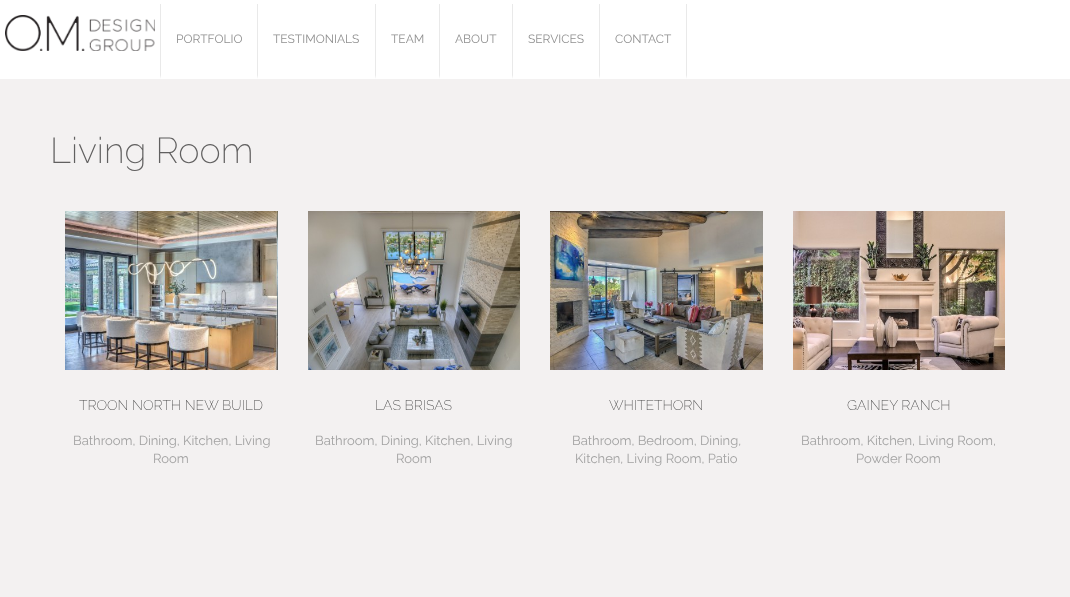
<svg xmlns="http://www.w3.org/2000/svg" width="1070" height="597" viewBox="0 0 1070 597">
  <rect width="100%" height="100%" fill="#f3f1f1"/>
  <path d="M0 0h1070v79H0z" fill="#fff"/>
  <image x="5" y="15" width="150" height="36" href="img/1.png"/>
  <path d="M258 4V79L257 75V4Z" fill="#e9e9e9"/>
  <path d="M160 79V4H161V75Z" fill="#e9e9e9"/>
  <path d="M376 4V79L375 75V4Z" fill="#e9e9e9"/>
  <path d="M440 4V79L439 75V4Z" fill="#e9e9e9"/>
  <path d="M513 4V79L512 75V4Z" fill="#e9e9e9"/>
  <path d="M600 4V79L599 75V4Z" fill="#e9e9e9"/>
  <path d="M687 4V79L686 75V4Z" fill="#e9e9e9"/>
  <image x="65" y="211" width="213" height="159" href="img/2.png"/>
  <image x="308" y="211" width="212" height="159" href="img/3.png"/>
  <image x="550" y="211" width="213" height="159" href="img/4.png"/>
  <image x="793" y="211" width="212" height="159" href="img/5.png"/>
  <g font-family="Raleway" font-size="12" fill="#909090">
    <text x="176" y="43">PORTFOLIO</text>
    <text x="273" y="43">TESTIMONIALS</text>
    <text x="391" y="43">TEAM</text>
    <text x="455" y="43">ABOUT</text>
    <text x="528" y="43">SERVICES</text>
    <text x="615" y="43">CONTACT</text>
  </g>
  <text x="50" y="163" font-family="Raleway" font-size="36" font-weight="200" fill="#616060">Living Room</text>
  <text x="79" y="410" font-family="Raleway" font-size="14" font-weight="200" fill="#4a4a4a">TROON NORTH NEW BUILD</text>
  <g font-family="Raleway" font-size="13" fill="#a2a2a2">
    <text x="73" y="445">Bathroom, Dining, Kitchen, Living</text>
    <text x="153" y="463">Room</text>
  </g>
  <text x="375" y="410" font-family="Raleway" font-size="14" font-weight="200" fill="#4a4a4a">LAS BRISAS</text>
  <g font-family="Raleway" font-size="13" fill="#a2a2a2">
    <text x="315" y="445">Bathroom, Dining, Kitchen, Living</text>
    <text x="396" y="463">Room</text>
  </g>
  <text x="609" y="410" font-family="Raleway" font-size="14" font-weight="200" fill="#4a4a4a">WHITETHORN</text>
  <g font-family="Raleway" font-size="13" fill="#a2a2a2">
    <text x="572" y="445">Bathroom, Bedroom, Dining,</text>
    <text x="575" y="463">Kitchen, Living Room, Patio</text>
  </g>
  <text x="847" y="410" font-family="Raleway" font-size="14" font-weight="200" fill="#4a4a4a">GAINEY RANCH</text>
  <g font-family="Raleway" font-size="13" fill="#a2a2a2">
    <text x="801" y="445">Bathroom, Kitchen, Living Room,</text>
    <text x="856" y="463">Powder Room</text>
  </g>
</svg>
